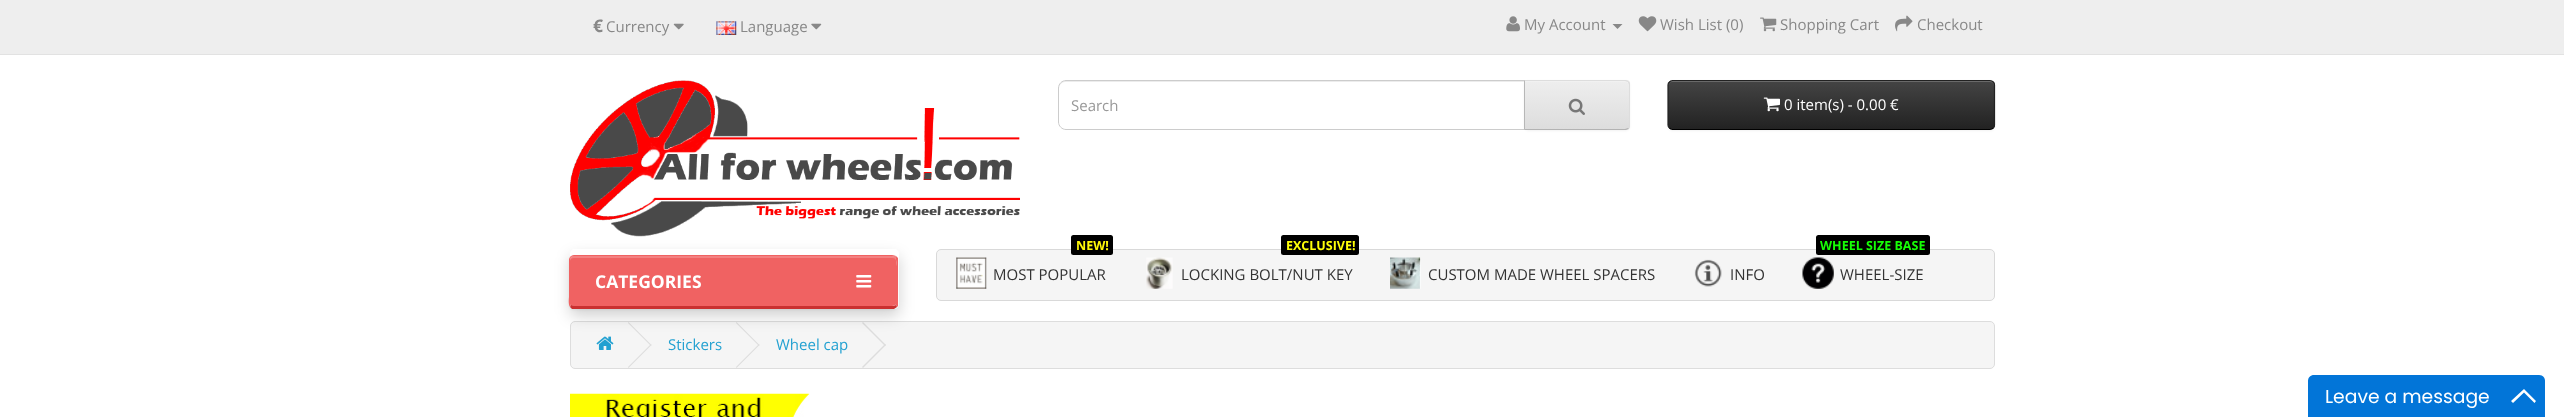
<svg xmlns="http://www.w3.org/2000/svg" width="2564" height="417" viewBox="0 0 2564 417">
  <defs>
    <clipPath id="clip1"><path d="M1524 80H1625C1628 80 1630 82 1630 85V125C1630 128 1628 130 1625 130H1524Z"/></clipPath>
    <linearGradient id="g1" gradientUnits="userSpaceOnUse" x1="1577" y1="81" x2="1577" y2="129"><stop offset="0" stop-color="#eee"/><stop offset="1" stop-color="#ddd"/></linearGradient>
    <clipPath id="clip2"><rect x="1668" y="80" width="327" height="50" rx="5"/></clipPath>
    <linearGradient id="g2" gradientUnits="userSpaceOnUse" x1="1831" y1="81" x2="1831" y2="129"><stop offset="0" stop-color="#444"/><stop offset="1" stop-color="#222"/></linearGradient>
    <clipPath id="clip3"><path d="M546 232H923V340H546ZM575 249H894C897 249 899 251 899 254V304C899 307 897 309 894 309H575C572 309 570 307 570 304V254C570 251 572 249 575 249Z" clip-rule="evenodd"/></clipPath>
  </defs>
  <rect width="100%" height="100%" fill="#fff"/>
  <path d="M0 0h2564v54H0z" fill="#eee"/>
  <path d="M0 54h2564v1H0z" fill="#e2e2e2"/>
  <image x="673" y="23" width="11" height="7" href="img/1.png"/>
  <image x="716" y="21" width="21" height="14" href="img/2.png"/>
  <image x="811" y="23" width="11" height="7" href="img/3.png"/>
  <image x="1506" y="16" width="14" height="16" href="img/4.png"/>
  <path d="M1612.5 24H1622.5L1617.5 29Z" fill="#888"/>
  <image x="1638" y="16" width="19" height="16" href="img/5.png"/>
  <image x="1760" y="17" width="17" height="15" href="img/6.png"/>
  <image x="1895" y="15" width="18" height="17" href="img/7.png"/>
  <image x="570" y="80" width="450" height="157" href="img/8.png"/>
  <path d="M1065 82H1524V81H1065C1060 81 1059 85 1059 89C1059 85 1062 82 1065 82Z" fill="#ececec"/>
  <path d="M1066 80.5H1524.5V129.5H1066C1062 129.5 1058.5 126 1058.5 122V88C1058.5 84 1062 80.5 1066 80.5Z" fill="none" stroke="#ccc"/>
  <rect x="1524" y="81" width="106" height="50" rx="5" fill="#0000000d" filter="blur(1px)"/>
  <g clip-path="url(#clip1)">
    <path d="M1525 81h105v48H1525z" fill="url(#g1)"/>
  </g>
  <path d="M1525 82H1625C1627 82 1629 84 1629 86V85C1629 83 1627 81 1625 81H1525Z" fill="#f1f1f1"/>
  <path d="M1524 80L1525 81H1625L1628 82L1629 81C1628 80 1626 80 1625 80Z" fill="#ddd"/>
  <path d="M1630 125V85C1630 84 1630 82 1629 81L1628 82C1628 83 1629 84 1629 85V125C1629 126 1628 127 1628 128L1629 129C1630 128 1630 126 1630 125Z" fill="#ddd"/>
  <path d="M1524 130H1626L1629 129L1628 128L1625 129H1525Z" fill="#b3b3b3"/>
  <path d="M1524 80V130L1525 129V81Z" fill="#b7b7b7"/>
  <image x="1568" y="98" width="17" height="17" href="img/9.png"/>
  <rect x="1668" y="81" width="327" height="50" rx="5" fill="#0000000d" filter="blur(1px)"/>
  <g clip-path="url(#clip2)">
    <path d="M1668 81h327v48H1668z" fill="url(#g2)"/>
  </g>
  <path d="M1672 82H1990C1992 82 1994 84 1994 86V85C1994 83 1992 81 1990 81H1673C1671 81 1669 83 1669 85V86C1669 84 1670 82 1672 82Z" fill="#696969"/>
  <path d="M1993 128C1992.5 129 1991 129.5 1990 129.5H1672.5C1671.5 129.5 1670 129 1669.5 128" fill="none" stroke="#000" stroke-width="1.2"/>
  <path d="M1669.5 128C1668.5 127.5 1668 126 1668 125V85C1668 84 1668.5 82.5 1669.5 82C1670 81 1671.5 80.5 1672.5 80.5H1990C1991 80.5 1992.5 81 1993 82C1994 82.5 1994.5 84 1994.5 85V125C1994.5 126 1994 127.5 1993 128" fill="none" stroke="#222" stroke-width="1.2"/>
  <image x="1763" y="97" width="17" height="15" href="img/10.png"/>
  <rect x="570.5" y="321.5" width="1424" height="47" rx="4.5" fill="#f5f5f5" stroke="#ddd"/>
  <image x="596" y="336" width="18" height="14" href="img/17.png"/>
  <path d="M628 323L628.5 322L651.5 345L651 346Z" fill="#ddd"/>
  <path d="M736 323L736.5 322L759.5 345L759 346Z" fill="#ddd"/>
  <path d="M862 323L863 322L886 345L885 346Z" fill="#ddd"/>
  <g clip-path="url(#clip3)">
    <rect x="570" y="256" width="329" height="60" rx="5" fill="#0000002e" filter="blur(7.5px)"/>
  </g>
  <rect x="569" y="256" width="329" height="54" rx="5" fill="#0000000d" filter="blur(1px)"/>
  <path d="M574 256H892C895 256 896 258 896 260V304C896 305 895 306 892 306H574C572 306 570 305 570 304V260C570 258 572 256 574 256Z" fill="#f06262"/>
  <path d="M574 258H892C895 258 896 259 896 261V305V260C896 258 895 256 892 256H574C572 256 570 258 570 260V261C570 259 572 258 574 258Z" fill="#ffffff33"/>
  <path d="M574 255C572 255 571 256 570 257H571L574 256H893L895 257L896 256C895 256 894 255 892 255Z" fill="#f06262"/>
  <path d="M898 306L897 307L896 305V267C896 266 897 260 895 257L896 256L898 258Z" fill="#f06262"/>
  <path d="M572 309L570 307L571 305L574 306H627H894L896 305L897 307L894 309Z" fill="#ca3030"/>
  <path d="M570 257L569 259V297C569 298 568 304 570 307L571 305L570 304V260L571 257Z" fill="#f06262"/>
  <image x="856" y="275" width="16" height="13" href="img/11.png"/>
  <rect x="936.5" y="249.5" width="1058" height="51" rx="4.5" fill="#f5f5f5" stroke="#d9d9d9"/>
  <rect x="1071" y="235" width="42" height="20" rx="2.5" fill="#000"/>
  <image x="956" y="257" width="31" height="32" href="img/12.png"/>
  <rect x="1281" y="235" width="78" height="20" rx="2.5" fill="#000"/>
  <image x="1146" y="257" width="27" height="32" href="img/13.png"/>
  <image x="1390" y="257" width="31" height="32" href="img/14.png"/>
  <image x="1694" y="259" width="28" height="28" href="img/15.png"/>
  <rect x="1816" y="235" width="114" height="20" rx="2.5" fill="#000"/>
  <image x="1802" y="257" width="32" height="32" href="img/16.png"/>
  <path d="M628 367L651 344L651.5 345L628.5 368Z" fill="#ddd"/>
  <path d="M736 367L759 344L759.5 345L736.5 368Z" fill="#ddd"/>
  <path d="M862 367L885 344L886 345L863 368Z" fill="#ddd"/>
  <image x="570" y="393" width="240" height="24" href="img/18.png"/>
  <path d="M2314 375H2539C2542.5 375 2545 377.5 2545 381V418H2308V381C2308 377.5 2310.5 375 2314 375Z" fill="#0275d8"/>
  <path d="M2524 389L2536 401L2534.5 403L2524 392.5L2513 403L2511 401Z" fill="#fff"/>
  <text x="593" y="32" font-family="Open Sans" font-size="17.5" font-weight="bold" fill="#888">€</text>
  <g font-family="Open Sans" font-size="15" fill="#888">
    <text x="606" y="32">Currency</text>
    <text x="740" y="32">Language</text>
    <text x="1524" y="30">My Account</text>
    <text x="1660" y="30">Wish List (0)</text>
    <text x="1780" y="30">Shopping Cart</text>
    <text x="1917" y="30">Checkout</text>
  </g>
  <text x="1071" y="111" font-family="Open Sans" font-size="15" fill="#999">Search</text>
  <text x="1784" y="110" font-family="Open Sans" font-size="15" fill="#fff">0 item(s) - 0.00 €</text>
  <text x="595" y="288" font-family="Open Sans" font-size="17.5" font-weight="bold" fill="#fff">CATEGORIES</text>
  <text x="1076" y="250" font-family="Open Sans" font-size="12.5" font-weight="bold" fill="#fff909">NEW!</text>
  <text x="993" y="280" font-family="Open Sans" font-size="15" fill="#333">MOST POPULAR</text>
  <text x="1286" y="250" font-family="Open Sans" font-size="12.5" font-weight="bold" fill="#ffff09">EXCLUSIVE!</text>
  <g font-family="Open Sans" font-size="15" fill="#333">
    <text x="1181" y="280">LOCKING BOLT/NUT KEY</text>
    <text x="1428" y="280">CUSTOM MADE WHEEL SPACERS</text>
    <text x="1730" y="280">INFO</text>
  </g>
  <text x="1820" y="250" font-family="Open Sans" font-size="12.5" font-weight="bold" fill="#16ff05">WHEEL SIZE BASE</text>
  <text x="1840" y="280" font-family="Open Sans" font-size="15" fill="#333">WHEEL-SIZE</text>
  <g font-family="Open Sans" font-size="15" fill="#23a1d1">
    <text x="668" y="350">Stickers</text>
    <text x="776" y="350">Wheel cap</text>
  </g>
  <text x="2325" y="403" font-family="Poppins" font-size="18.75" fill="#fff">Leave a message</text>
</svg>
